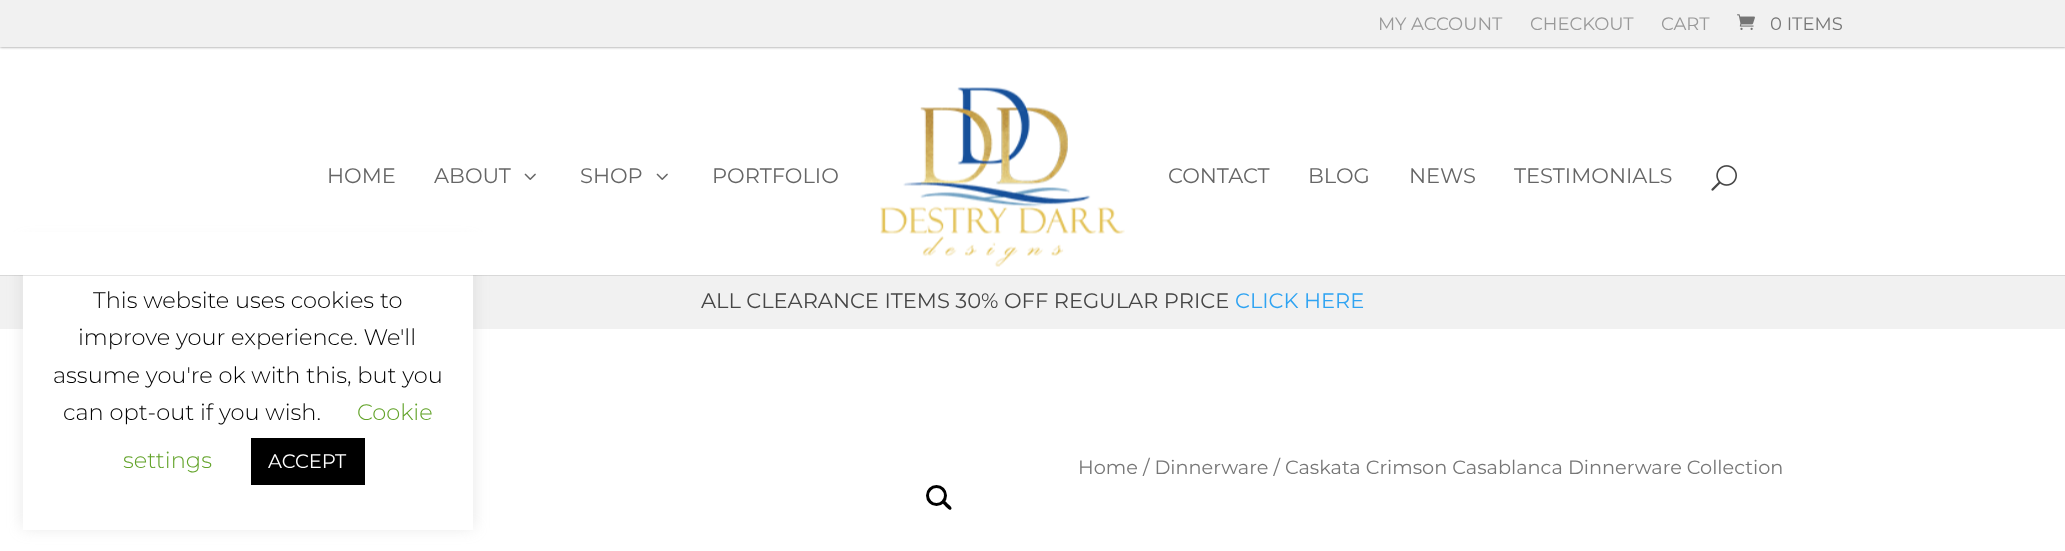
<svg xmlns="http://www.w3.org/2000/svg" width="2065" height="551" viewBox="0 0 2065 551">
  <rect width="100%" height="100%" fill="#fff"/>
  <path d="M0 275h2065v54H0z" fill="#f1f1f1"/>
  <path d="M23 242h450v286H23z" fill="#acabab4d" filter="blur(7.5px)"/>
  <path d="M23 275h450v255H23z" fill="#fff"/>
  <path d="M251 438h114v47H251z" fill="#000"/>
  <path d="M0 0h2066v47H0z" fill="#00000080" filter="blur(1.5px)"/>
  <path d="M0 0h2065v47H0z" fill="#f1f1f1"/>
  <image x="1737" y="14" width="18" height="16" href="img/1.png"/>
  <path d="M0 274V276H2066V48V274Z" fill="#0000001a"/>
  <path d="M0 232h2065v43H0z" fill="#fff"/>
  <image x="524" y="173" width="12" height="7" href="img/2.png"/>
  <image x="656" y="173" width="12" height="7" href="img/2.png"/>
  <image x="880" y="87" width="245" height="180" href="img/3.png"/>
  <image x="1711" y="165" width="26" height="26" href="img/4.png"/>
  <circle cx="936.5" cy="495.5" r="9" fill="none" stroke="#000" stroke-width="3"/>
  <path d="M942.5 501C944.5 499 947 503 948 504C949 505 953 507.5 951 509.5C949.5 511 946.5 507 945.5 506.5C945 505.5 941 502.5 942.5 501Z" fill="#000"/>
  <g font-family="Montserrat" font-size="22.5" font-weight="300" fill="#000">
    <text x="93" y="308">This website uses cookies to</text>
    <text x="78" y="345">improve your experience. We'll</text>
    <text x="53" y="383">assume you're ok with this, but you</text>
    <text x="63" y="420">can opt-out if you wish.</text>
  </g>
  <g font-family="Montserrat" font-size="22.5" font-weight="300" fill="#62a329">
    <text x="357" y="420">Cookie</text>
    <text x="123" y="468">settings</text>
  </g>
  <text x="268" y="468" font-family="Montserrat" font-size="19.5" fill="#fff">ACCEPT</text>
  <g font-family="Montserrat" font-size="18" fill="#999">
    <text x="1378" y="30">MY ACCOUNT</text>
    <text x="1530" y="30">CHECKOUT</text>
    <text x="1661" y="30">CART</text>
  </g>
  <text x="1770" y="30" font-family="Montserrat" font-size="18" fill="#767676">0 ITEMS</text>
  <g font-family="Montserrat" font-size="21" fill="#666">
    <text x="327" y="183">HOME</text>
    <text x="434" y="183">ABOUT</text>
    <text x="580" y="183">SHOP</text>
    <text x="712" y="183">PORTFOLIO</text>
    <text x="1168" y="183">CONTACT</text>
    <text x="1308" y="183">BLOG</text>
    <text x="1409" y="183">NEWS</text>
    <text x="1514" y="183">TESTIMONIALS</text>
  </g>
  <text x="701" y="308" font-family="Montserrat" font-size="21" fill="#464646">ALL CLEARANCE ITEMS 30% OFF REGULAR PRICE</text>
  <text x="1235" y="308" font-family="Montserrat" font-size="21" fill="#2ea3f2">CLICK HERE</text>
  <text x="1078" y="474" font-family="Montserrat" font-size="19.3" fill="#767676">Home / Dinnerware / Caskata Crimson Casablanca Dinnerware Collection</text>
</svg>
